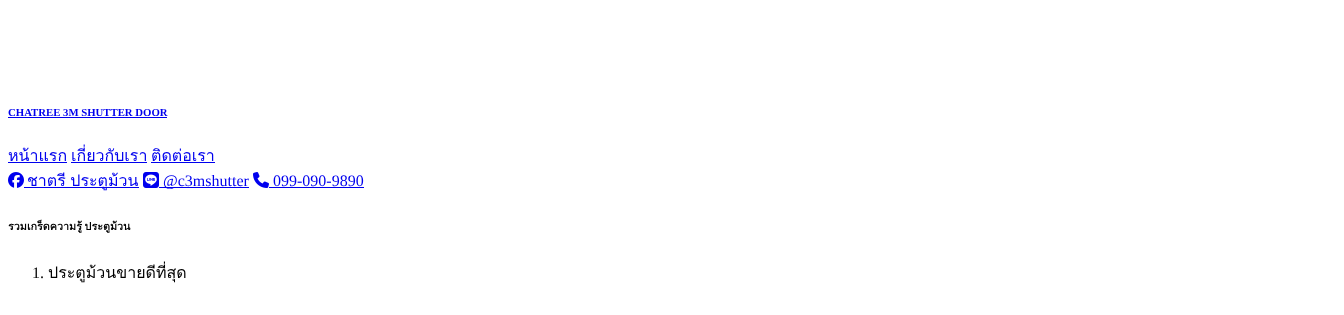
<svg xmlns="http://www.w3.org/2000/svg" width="1344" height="315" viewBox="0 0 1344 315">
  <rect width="100%" height="100%" fill="#fff"/>
  <path d="M8 117h159v1H8z" fill="#00e"/>
  <path d="M8 162h59v1H8z" fill="#00e"/>
  <path d="M71 162h76v1H71z" fill="#00e"/>
  <path d="M151 162h64v1H151z" fill="#00e"/>
  <image x="8" y="172" width="16" height="16" href="img/1.png"/>
  <path d="M24 187h115v1H24z" fill="#00e"/>
  <image x="143" y="172" width="16" height="16" href="img/2.png"/>
  <path d="M159 187h90v1H159z" fill="#00e"/>
  <image x="253" y="172" width="16" height="16" href="img/3.png"/>
  <path d="M269 187h95v1H269z" fill="#00e"/>
  <text x="8" y="116" font-family="Liberation Serif" font-size="10.75" font-weight="bold" fill="#00e">CHATREE 3M SHUTTER DOOR</text>
  <g font-family="Loma" font-size="16" fill="#00e">
    <text x="8" y="161">หน้าแรก</text>
    <text x="71" y="161">เกี่ยวกับเรา</text>
    <text x="151" y="161">ติดต่อเรา</text>
    <text x="27" y="186" word-spacing="-1">ชาตรี ประตูม้วน</text>
  </g>
  <g font-family="Liberation Serif" font-size="16" fill="#00e">
    <text x="163" y="186">@c3mshutter</text>
    <text x="273" y="186">099-090-9890</text>
  </g>
  <text x="8" y="230" word-spacing="-1" font-family="Loma" font-size="10.75" font-weight="bold" fill="#000">รวมเกร็ดความรู้ ประตูม้วน</text>
  <text x="32" y="278" font-family="Liberation Serif" font-size="16" fill="#000">1.</text>
  <text x="48" y="278" font-family="Loma" font-size="16" fill="#000">ประตูม้วนขายดีที่สุด</text>
</svg>
